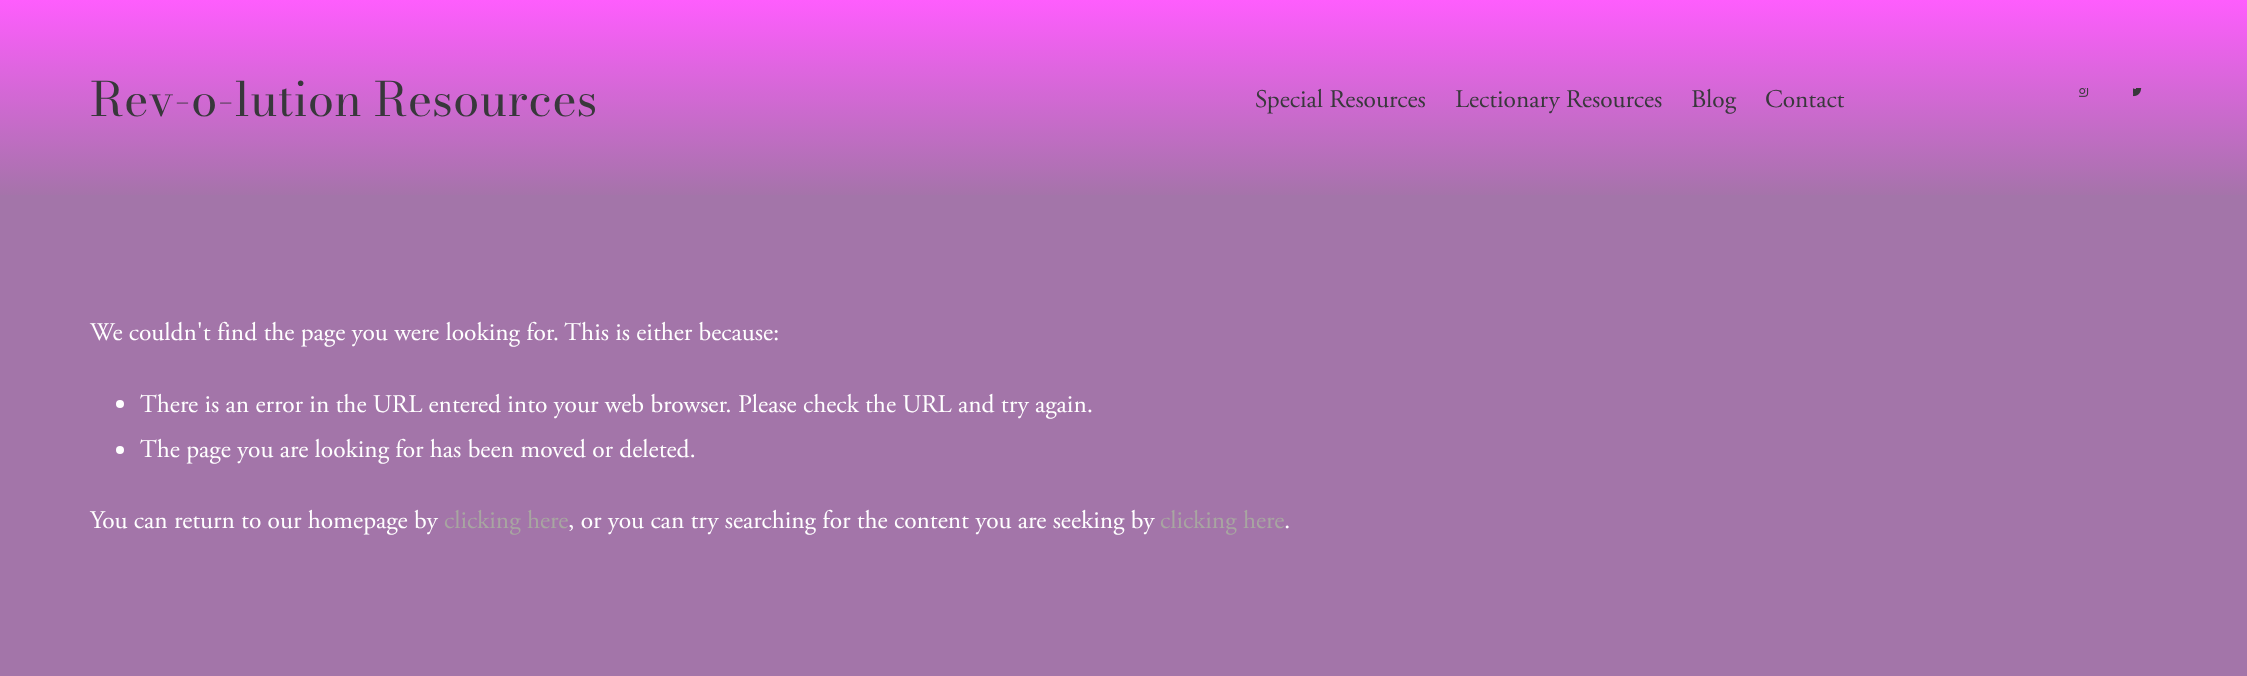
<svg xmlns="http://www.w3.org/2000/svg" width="2247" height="676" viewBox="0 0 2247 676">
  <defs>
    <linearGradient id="g1" gradientUnits="userSpaceOnUse" x1="1124" y1="0" x2="1124" y2="200"><stop offset="0" stop-color="#fe5dfd"/><stop offset="1" stop-color="#a374a8"/></linearGradient>
  </defs>
  <rect width="100%" height="100%" fill="#a375a9"/>
  <path d="M0 0h2247v195H0z" fill="url(#g1)"/>
  <image x="2079" y="88" width="10" height="9" href="img/1.png"/>
  <image x="2133" y="88" width="9" height="9" href="img/2.png"/>
  <circle cx="120" cy="404" r="4" fill="#fff"/>
  <circle cx="120" cy="450" r="4" fill="#fff"/>
  <text x="90" y="116" font-family="Bodoni Moda" font-size="47" fill="#38383b">Rev-o-lution Resources</text>
  <g font-family="Adobe Garamond" font-size="25.4" fill="#38383b">
    <text x="1255" y="107">Special Resources</text>
    <text x="1455" y="107">Lectionary Resources</text>
    <text x="1691" y="107">Blog</text>
    <text x="1765" y="107">Contact</text>
  </g>
  <g font-family="Adobe Garamond" font-size="25.4" fill="#fff">
    <text x="90" y="340">We couldn't find the page you were looking for. This is either because:</text>
    <text x="140" y="412">There is an error in the URL entered into your web browser. Please check the URL and try again.</text>
    <text x="140" y="457">The page you are looking for has been moved or deleted.</text>
    <text x="90" y="528">You can return to our homepage by</text>
  </g>
  <text x="444" y="528" font-family="Adobe Garamond" font-size="25.4" fill="#a8a6a1">clicking here</text>
  <text x="568" y="528" font-family="Adobe Garamond" font-size="25.4" fill="#fff">, or you can try searching for the content you are seeking by</text>
  <text x="1160" y="528" font-family="Adobe Garamond" font-size="25.4" fill="#a8a6a1">clicking here</text>
  <text x="1284" y="528" font-family="Adobe Garamond" font-size="25.4" fill="#fff">.</text>
</svg>
